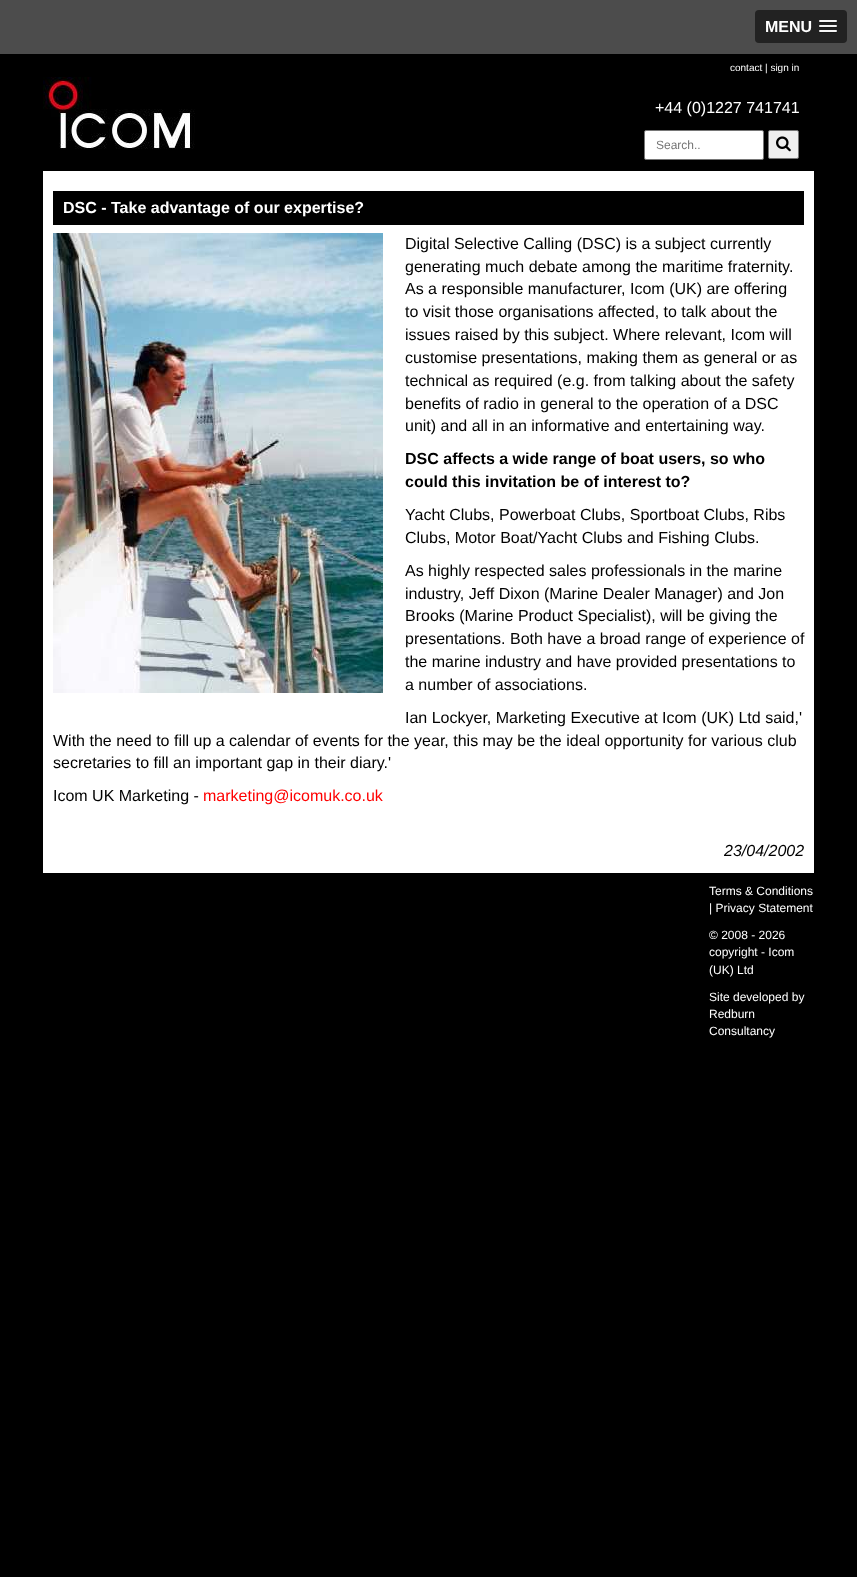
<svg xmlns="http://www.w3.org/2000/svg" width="857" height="1577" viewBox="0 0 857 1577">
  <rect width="100%" height="100%" fill="#000"/>
  <path d="M0 0h857v54H0z" fill="#4c4c4c"/>
  <rect x="755" y="10" width="92" height="33" rx="4" fill="#222"/>
  <path d="M819 21.5C818 23.5 822.5 23 822.5 23H833.5C833.5 23 838 23.5 837 21.5C836 22.5 829.5 22 828 22C826.5 22 820 22.5 819 21.5Z" fill="#1a1a1a"/>
  <rect x="819" y="20" width="18" height="2" rx="1" fill="#f5f5f5"/>
  <path d="M819 26.5C818 28.5 822.5 28 822.5 28H833.5C833.5 28 838 28.5 837 26.5C836 27.5 829.5 27 828 27C826.5 27 820 27.5 819 26.5Z" fill="#1a1a1a"/>
  <rect x="819" y="25" width="18" height="2" rx="1" fill="#f5f5f5"/>
  <path d="M819 31.5C818 33.5 822.5 33 822.5 33H833.5C833.5 33 838 33.5 837 31.5C836 32.5 829.5 32 828 32C826.5 32 820 32.5 819 31.5Z" fill="#1a1a1a"/>
  <rect x="819" y="30" width="18" height="2" rx="1" fill="#f5f5f5"/>
  <image x="43" y="77" width="152" height="72" href="img/1.png"/>
  <rect x="644.5" y="130.5" width="119" height="29" rx="1.5" fill="#fff" stroke="#767676"/>
  <rect x="768.5" y="130.5" width="30" height="28" rx="1.5" fill="#efefef" stroke="#767676"/>
  <image x="776" y="136" width="15" height="16" href="img/2.png"/>
  <path d="M43 171h771v702H43z" fill="#fff"/>
  <path d="M53 191h751v34H53z" fill="#000"/>
  <image x="53" y="233" width="330" height="460" href="img/3.png"/>
  <text x="765" y="32" font-family="Liberation Sans" font-size="16" font-weight="bold" fill="#fff">MENU</text>
  <text x="730" y="71" font-family="Liberation Sans" font-size="10" fill="#fff">contact | sign in</text>
  <text x="655" y="113" font-family="Liberation Sans" font-size="16" fill="#fff">+44 (0)1227 741741</text>
  <text x="656" y="149" font-family="Liberation Sans" font-size="12" fill="#757575">Search..</text>
  <text x="63" y="213" font-family="Liberation Sans" font-size="16" font-weight="bold" fill="#fff">DSC - Take advantage of our expertise?</text>
  <g font-family="Liberation Sans" font-size="16" fill="#000">
    <text x="405" y="249">Digital Selective Calling (DSC) is a subject currently</text>
    <text x="405" y="272">generating much debate among the maritime fraternity.</text>
    <text x="405" y="294">As a responsible manufacturer, Icom (UK) are offering</text>
    <text x="405" y="317">to visit those organisations affected, to talk about the</text>
    <text x="405" y="340">issues raised by this subject. Where relevant, Icom will</text>
    <text x="405" y="363">customise presentations, making them as general or as</text>
    <text x="405" y="386">technical as required (e.g. from talking about the safety</text>
    <text x="405" y="409">benefits of radio in general to the operation of a DSC</text>
    <text x="405" y="431">unit) and all in an informative and entertaining way.</text>
  </g>
  <g font-family="Liberation Sans" font-size="16" font-weight="bold" fill="#000">
    <text x="405" y="464">DSC affects a wide range of boat users, so who</text>
    <text x="405" y="487">could this invitation be of interest to?</text>
  </g>
  <g font-family="Liberation Sans" font-size="16" fill="#000">
    <text x="405" y="520">Yacht Clubs, Powerboat Clubs, Sportboat Clubs, Ribs</text>
    <text x="405" y="543">Clubs, Motor Boat/Yacht Clubs and Fishing Clubs.</text>
    <text x="405" y="576">As highly respected sales professionals in the marine</text>
    <text x="405" y="599">industry, Jeff Dixon (Marine Dealer Manager) and Jon</text>
    <text x="405" y="621">Brooks (Marine Product Specialist), will be giving the</text>
    <text x="405" y="644">presentations. Both have a broad range of experience of</text>
    <text x="405" y="667">the marine industry and have provided presentations to</text>
    <text x="405" y="690">a number of associations.</text>
    <text x="405" y="723">Ian Lockyer, Marketing Executive at Icom (UK) Ltd said,'</text>
    <text x="53" y="746">With the need to fill up a calendar of events for the year, this may be the ideal opportunity for various club</text>
    <text x="53" y="768">secretaries to fill an important gap in their diary.'</text>
    <text x="53" y="801">Icom UK Marketing -</text>
  </g>
  <text x="203" y="801" font-family="Liberation Sans" font-size="16" fill="#f00">marketing@icomuk.co.uk</text>
  <text x="724" y="856" font-family="Liberation Sans" font-size="16" font-style="italic" fill="#000">23/04/2002</text>
  <g font-family="Liberation Sans" font-size="12" fill="#fff">
    <text x="709" y="895">Terms &amp; Conditions</text>
    <text x="709" y="912">| Privacy Statement</text>
    <text x="709" y="939">© 2008 - 2026</text>
    <text x="709" y="956">copyright - Icom</text>
    <text x="709" y="974">(UK) Ltd</text>
    <text x="709" y="1001">Site developed by</text>
    <text x="709" y="1018">Redburn</text>
    <text x="709" y="1035">Consultancy</text>
  </g>
</svg>
